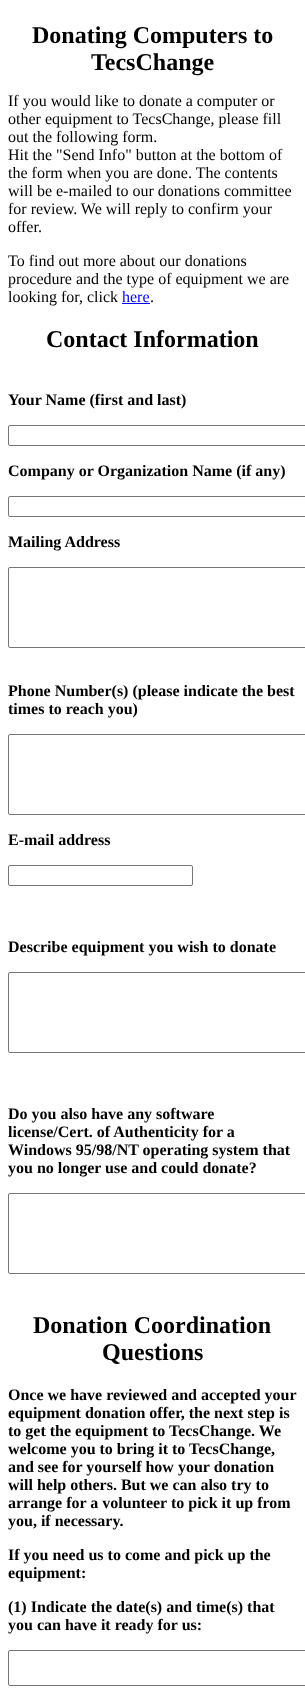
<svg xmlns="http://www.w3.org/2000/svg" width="305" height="1704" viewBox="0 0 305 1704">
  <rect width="100%" height="100%" fill="#fff"/>
  <path d="M122 303h28v1H122z" fill="#00e"/>
  <rect x="8.5" y="425.5" width="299" height="20" rx="1.5" fill="none" stroke="#767676"/>
  <rect x="8.5" y="496.5" width="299" height="20" rx="1.5" fill="none" stroke="#767676"/>
  <rect x="8.5" y="567.5" width="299" height="80" rx="1.5" fill="none" stroke="#767676"/>
  <rect x="8.5" y="734.5" width="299" height="80" rx="1.5" fill="none" stroke="#767676"/>
  <rect x="8.5" y="865.5" width="184" height="20" rx="1.5" fill="none" stroke="#767676"/>
  <rect x="8.5" y="972.5" width="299" height="80" rx="1.5" fill="none" stroke="#767676"/>
  <rect x="8.5" y="1193.5" width="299" height="80" rx="1.5" fill="none" stroke="#767676"/>
  <rect x="8.5" y="1650.5" width="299" height="35" rx="1.5" fill="none" stroke="#767676"/>
  <g font-family="Liberation Serif" font-size="24" font-weight="bold" fill="#000">
    <text x="32" y="43">Donating Computers to</text>
    <text x="91" y="70">TecsChange</text>
  </g>
  <g font-family="Liberation Serif" font-size="16" fill="#000">
    <text x="8" y="106">If you would like to donate a computer or</text>
    <text x="8" y="124">other equipment to TecsChange, please fill</text>
    <text x="8" y="142">out the following form.</text>
    <text x="8" y="160">Hit the "Send Info" button at the bottom of</text>
    <text x="8" y="178">the form when you are done. The contents</text>
    <text x="8" y="196">will be e-mailed to our donations committee</text>
    <text x="8" y="214">for review. We will reply to confirm your</text>
    <text x="8" y="232">offer.</text>
    <text x="8" y="266">To find out more about our donations</text>
    <text x="8" y="284">procedure and the type of equipment we are</text>
    <text x="8" y="302">looking for, click</text>
  </g>
  <text x="122" y="302" font-family="Liberation Serif" font-size="16" fill="#00e">here</text>
  <text x="150" y="302" font-family="Liberation Serif" font-size="16" fill="#000">.</text>
  <text x="46" y="347" font-family="Liberation Serif" font-size="24" font-weight="bold" fill="#000">Contact Information</text>
  <g font-family="Liberation Serif" font-size="16" font-weight="bold" fill="#000">
    <text x="8" y="405">Your Name (first and last)</text>
    <text x="8" y="476">Company or Organization Name (if any)</text>
    <text x="8" y="547">Mailing Address</text>
    <text x="8" y="696">Phone Number(s) (please indicate the best</text>
    <text x="8" y="714">times to reach you)</text>
    <text x="8" y="845">E-mail address</text>
    <text x="8" y="952">Describe equipment you wish to donate</text>
    <text x="8" y="1119">Do you also have any software</text>
    <text x="8" y="1137">license/Cert. of Authenticity for a</text>
    <text x="8" y="1155">Windows 95/98/NT operating system that</text>
    <text x="8" y="1173">you no longer use and could donate?</text>
  </g>
  <g font-family="Liberation Serif" font-size="24" font-weight="bold" fill="#000">
    <text x="33" y="1333">Donation Coordination</text>
    <text x="102" y="1360">Questions</text>
  </g>
  <g font-family="Liberation Serif" font-size="16" font-weight="bold" fill="#000">
    <text x="8" y="1400">Once we have reviewed and accepted your</text>
    <text x="8" y="1418">equipment donation offer, the next step is</text>
    <text x="8" y="1436">to get the equipment to TecsChange. We</text>
    <text x="8" y="1454">welcome you to bring it to TecsChange,</text>
    <text x="8" y="1472">and see for yourself how your donation</text>
    <text x="8" y="1490">will help others. But we can also try to</text>
    <text x="8" y="1508">arrange for a volunteer to pick it up from</text>
    <text x="8" y="1526">you, if necessary.</text>
    <text x="8" y="1560">If you need us to come and pick up the</text>
    <text x="8" y="1578">equipment:</text>
    <text x="8" y="1612">(1) Indicate the date(s) and time(s) that</text>
    <text x="8" y="1630">you can have it ready for us:</text>
  </g>
</svg>
